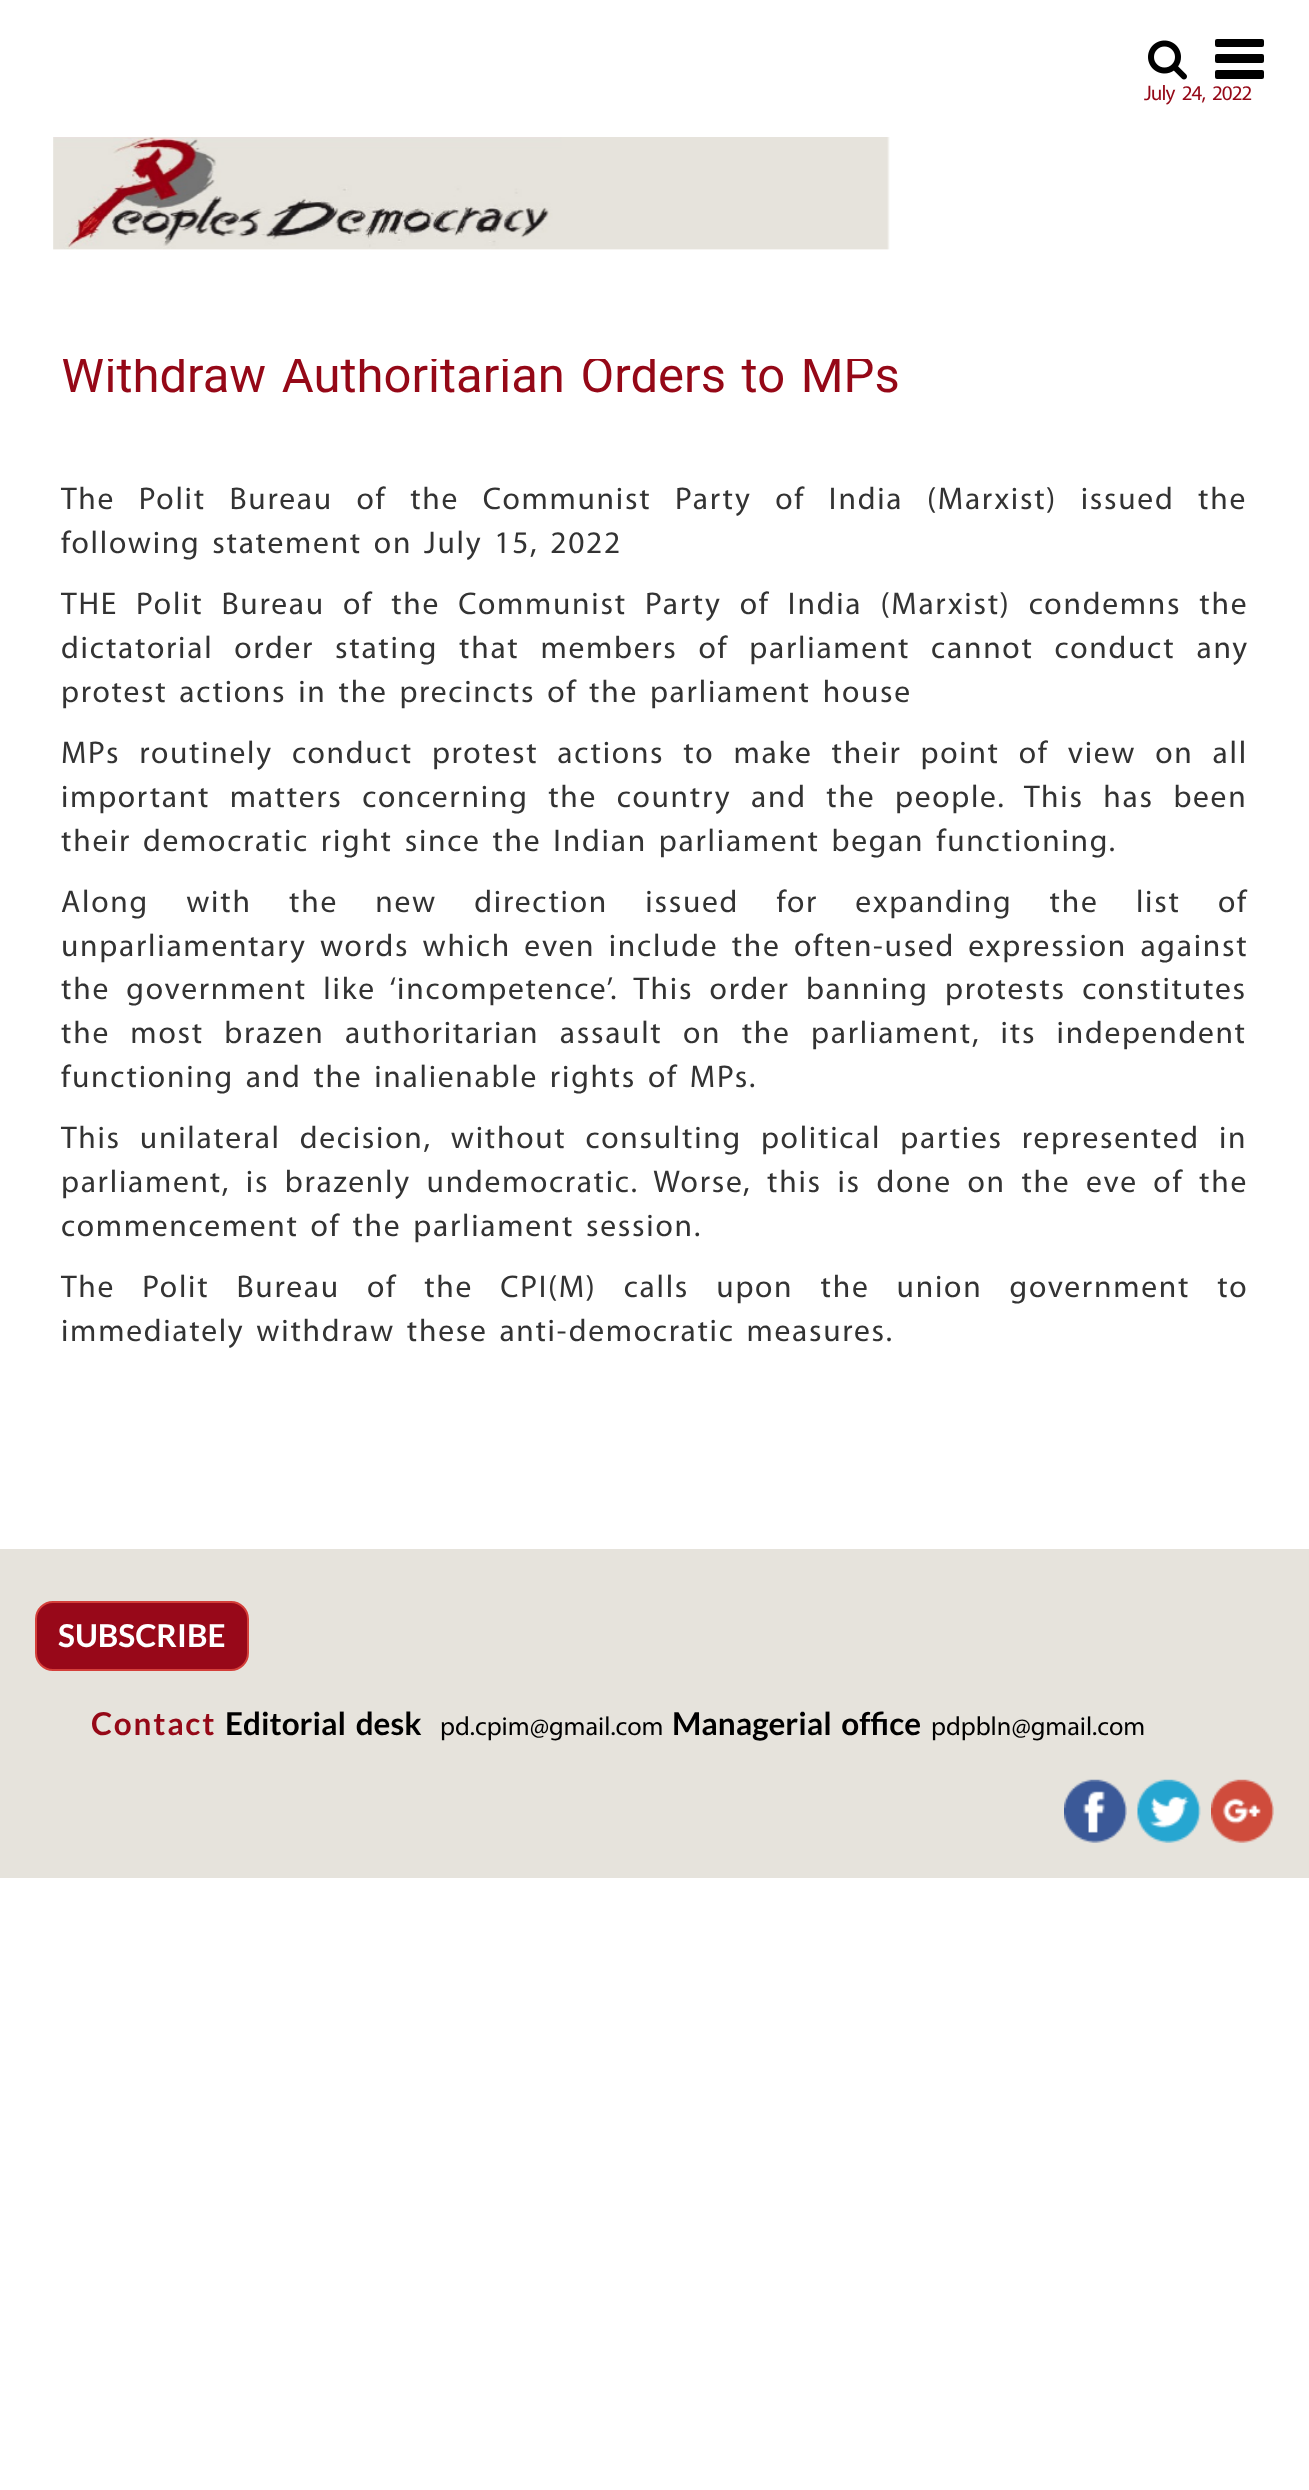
<svg xmlns="http://www.w3.org/2000/svg" width="1309" height="2490" viewBox="0 0 1309 2490">
  <rect width="100%" height="100%" fill="#fff"/>
  <image x="1148" y="40" width="39" height="40" href="img/1.png"/>
  <rect x="1215" y="39" width="49" height="8" rx="2" fill="#000"/>
  <rect x="1215" y="54" width="49" height="9" rx="2" fill="#000"/>
  <rect x="1215" y="70" width="49" height="9" rx="2" fill="#000"/>
  <image x="53" y="137" width="837" height="113" href="img/2.png"/>
  <path d="M0 1549h1309v329H0z" fill="#e6e3dc"/>
  <rect x="36" y="1602" width="212" height="68" rx="17" fill="#980819" stroke="#d43f3a" stroke-width="2"/>
  <image x="1064" y="1779" width="63" height="64" href="img/3.png"/>
  <image x="1137" y="1779" width="64" height="64" href="img/4.png"/>
  <image x="1211" y="1779" width="63" height="64" href="img/5.png"/>
  <text x="1144" y="100" word-spacing="3.5" font-family="Myriad" font-size="21" letter-spacing="-0.9" fill="#950817">July 24, 2022</text>
  <text x="61" y="392" word-spacing="3.5" font-family="Roboto" font-size="49" fill="#950817">Withdraw Authoritarian Orders to MPs</text>
  <path d="M62 355h806v4H62z" fill="#fff"/>
  <g font-family="Myriad" font-size="31.5" letter-spacing="1.75" fill="#333">
    <text x="61" y="509" word-spacing="15.25">The Polit Bureau of the Communist Party of India (Marxist) issued the</text>
    <text x="61" y="553" word-spacing="3.5">following statement on July 15, 2022</text>
    <text x="61" y="614" word-spacing="9.75">THE Polit Bureau of the Communist Party of India (Marxist) condemns the</text>
    <text x="61" y="658" word-spacing="12.5">dictatorial order stating that members of parliament cannot conduct any</text>
    <text x="61" y="702" word-spacing="3.5">protest actions in the precincts of the parliament house</text>
    <text x="61" y="763" word-spacing="10.6">MPs routinely conduct protest actions to make their point of view on all</text>
    <text x="61" y="807" word-spacing="11.25">important matters concerning the country and the people. This has been</text>
    <text x="61" y="851" word-spacing="3.5">their democratic right since the Indian parliament began functioning.</text>
    <text x="61" y="912" word-spacing="28.9">Along with the new direction issued for expanding the list of</text>
    <text x="61" y="956" word-spacing="5">unparliamentary words which even include the often-used expression against</text>
    <text x="61" y="999" word-spacing="8">the government like ‘incompetence’. This order banning protests constitutes</text>
    <text x="61" y="1043" word-spacing="12">the most brazen authoritarian assault on the parliament, its independent</text>
    <text x="61" y="1087" word-spacing="3.5">functioning and the inalienable rights of MPs.</text>
    <text x="61" y="1148" word-spacing="10.6">This unilateral decision, without consulting political parties represented in</text>
    <text x="61" y="1192" word-spacing="7.25">parliament, is brazenly undemocratic. Worse, this is done on the eve of the</text>
    <text x="61" y="1236" word-spacing="3.5">commencement of the parliament session.</text>
    <text x="61" y="1297" word-spacing="18.75">The Polit Bureau of the CPI(M) calls upon the union government to</text>
    <text x="61" y="1341" word-spacing="3.5">immediately withdraw these anti-democratic measures.</text>
  </g>
  <text x="58" y="1647" font-family="Lato" font-size="31.5" font-weight="bold" fill="#fff">SUBSCRIBE</text>
  <text x="91" y="1735" font-family="Lato" font-size="31.5" font-weight="bold" letter-spacing="1.75" fill="#950817">Contact</text>
  <text x="225" y="1735" word-spacing="3.5" font-family="Lato" font-size="31.5" font-weight="bold" fill="#000">Editorial desk</text>
  <text x="440" y="1735" font-family="Myriad" font-size="26.25" fill="#000">pd.cpim@gmail.com</text>
  <text x="672" y="1735" word-spacing="3.5" font-family="Lato" font-size="31.5" font-weight="bold" fill="#000">Managerial office</text>
  <text x="931" y="1735" font-family="Myriad" font-size="26.25" fill="#000">pdpbln@gmail.com</text>
</svg>
